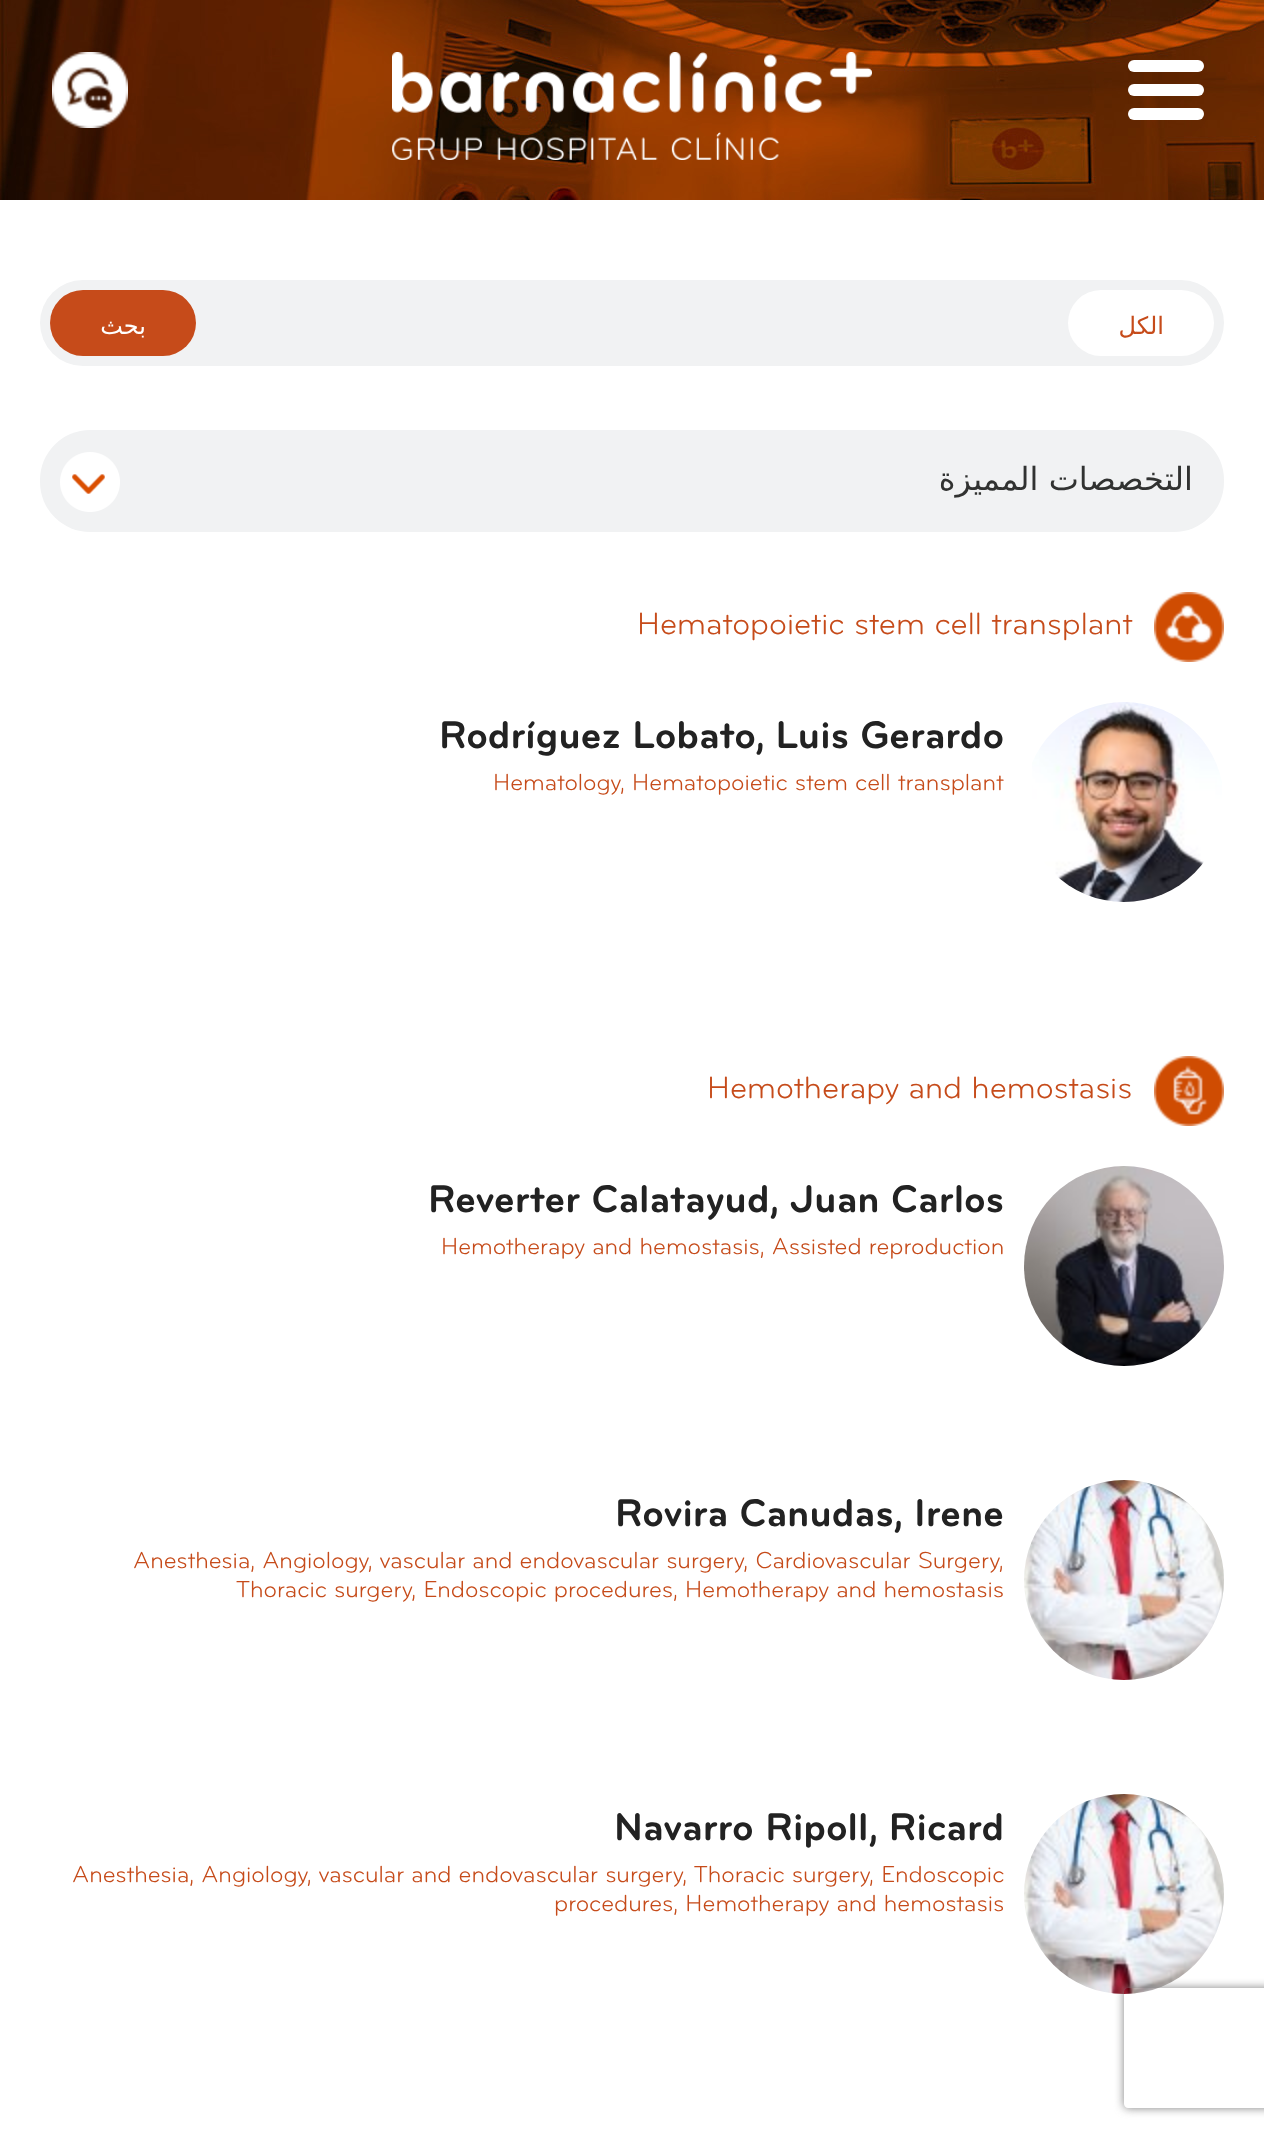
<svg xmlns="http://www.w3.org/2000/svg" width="1264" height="2136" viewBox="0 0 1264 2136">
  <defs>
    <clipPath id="clip1"><path d="M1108 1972H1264V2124H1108ZM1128 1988H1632C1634 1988 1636 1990 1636 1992V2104C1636 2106 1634 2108 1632 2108H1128C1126 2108 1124 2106 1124 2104V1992C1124 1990 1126 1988 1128 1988Z" clip-rule="evenodd"/></clipPath>
  </defs>
  <rect width="100%" height="100%" fill="#fff"/>
  <image x="0" y="0" width="1264" height="200" href="img/1.png"/>
  <image x="52" y="52" width="76" height="76" href="img/2.png"/>
  <image x="392" y="52" width="480" height="108" href="img/3.png"/>
  <rect x="1128" y="84" width="76" height="12" rx="6" fill="#fff"/>
  <rect x="1128" y="60" width="76" height="12" rx="6" fill="#fff"/>
  <rect x="1128" y="108" width="76" height="12" rx="6" fill="#fff"/>
  <rect x="40" y="280" width="1184" height="86" rx="43" fill="#f1f2f3"/>
  <rect x="50" y="290" width="146" height="66" rx="33" fill="#c64b1a"/>
  <rect x="1068" y="290" width="146" height="66" rx="33" fill="#fff"/>
  <rect x="40" y="430" width="1184" height="102" rx="50" fill="#f1f2f3"/>
  <image x="60" y="452" width="60" height="60" href="img/4.png"/>
  <image x="1154" y="592" width="70" height="70" href="img/5.png"/>
  <image x="1032" y="702" width="190" height="200" href="img/6.png"/>
  <image x="1154" y="1056" width="70" height="70" href="img/7.png"/>
  <image x="1024" y="1166" width="200" height="200" href="img/8.png"/>
  <image x="1024" y="1480" width="200" height="200" href="img/9.png"/>
  <image x="1024" y="1794" width="200" height="200" href="img/10.png"/>
  <g clip-path="url(#clip1)">
    <rect x="1124" y="1988" width="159" height="120" rx="4" fill="#808080" filter="blur(5px)"/>
  </g>
  <text x="146" y="334" font-family="DejaVu Sans" font-size="24" direction="rtl" fill="#fff">بحث</text>
  <text x="1164" y="334" font-family="DejaVu Sans" font-size="24" direction="rtl" fill="#c64b1a">الكل</text>
  <text x="1193" y="490" font-family="DejaVu Sans" font-size="32" direction="rtl" fill="#313231">التخصصات المميزة</text>
  <text x="637" y="634" font-family="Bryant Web" font-size="32" fill="#c64b1a">Hematopoietic stem cell transplant</text>
  <text x="439" y="748" font-family="Bryant Web" font-size="40" font-weight="bold" fill="#222">Rodríguez Lobato, Luis Gerardo</text>
  <text x="493" y="790" font-family="Bryant Web" font-size="24" fill="#c64b1a">Hematology, Hematopoietic stem cell transplant</text>
  <text x="707" y="1098" font-family="Bryant Web" font-size="32" fill="#c64b1a">Hemotherapy and hemostasis</text>
  <text x="428" y="1212" font-family="Bryant Web" font-size="40" font-weight="bold" fill="#222">Reverter Calatayud, Juan Carlos</text>
  <text x="441" y="1254" font-family="Bryant Web" font-size="24" fill="#c64b1a">Hemotherapy and hemostasis, Assisted reproduction</text>
  <text x="615" y="1526" font-family="Bryant Web" font-size="40" font-weight="bold" fill="#222">Rovira Canudas, Irene</text>
  <g font-family="Bryant Web" font-size="24" fill="#c64b1a">
    <text x="133" y="1568">Anesthesia, Angiology, vascular and endovascular surgery, Cardiovascular Surgery,</text>
    <text x="236" y="1597">Thoracic surgery, Endoscopic procedures, Hemotherapy and hemostasis</text>
  </g>
  <text x="614" y="1840" font-family="Bryant Web" font-size="40" font-weight="bold" fill="#222">Navarro Ripoll, Ricard</text>
  <g font-family="Bryant Web" font-size="24" fill="#c64b1a">
    <text x="72" y="1882">Anesthesia, Angiology, vascular and endovascular surgery, Thoracic surgery, Endoscopic</text>
    <text x="554" y="1911">procedures, Hemotherapy and hemostasis</text>
  </g>
</svg>
